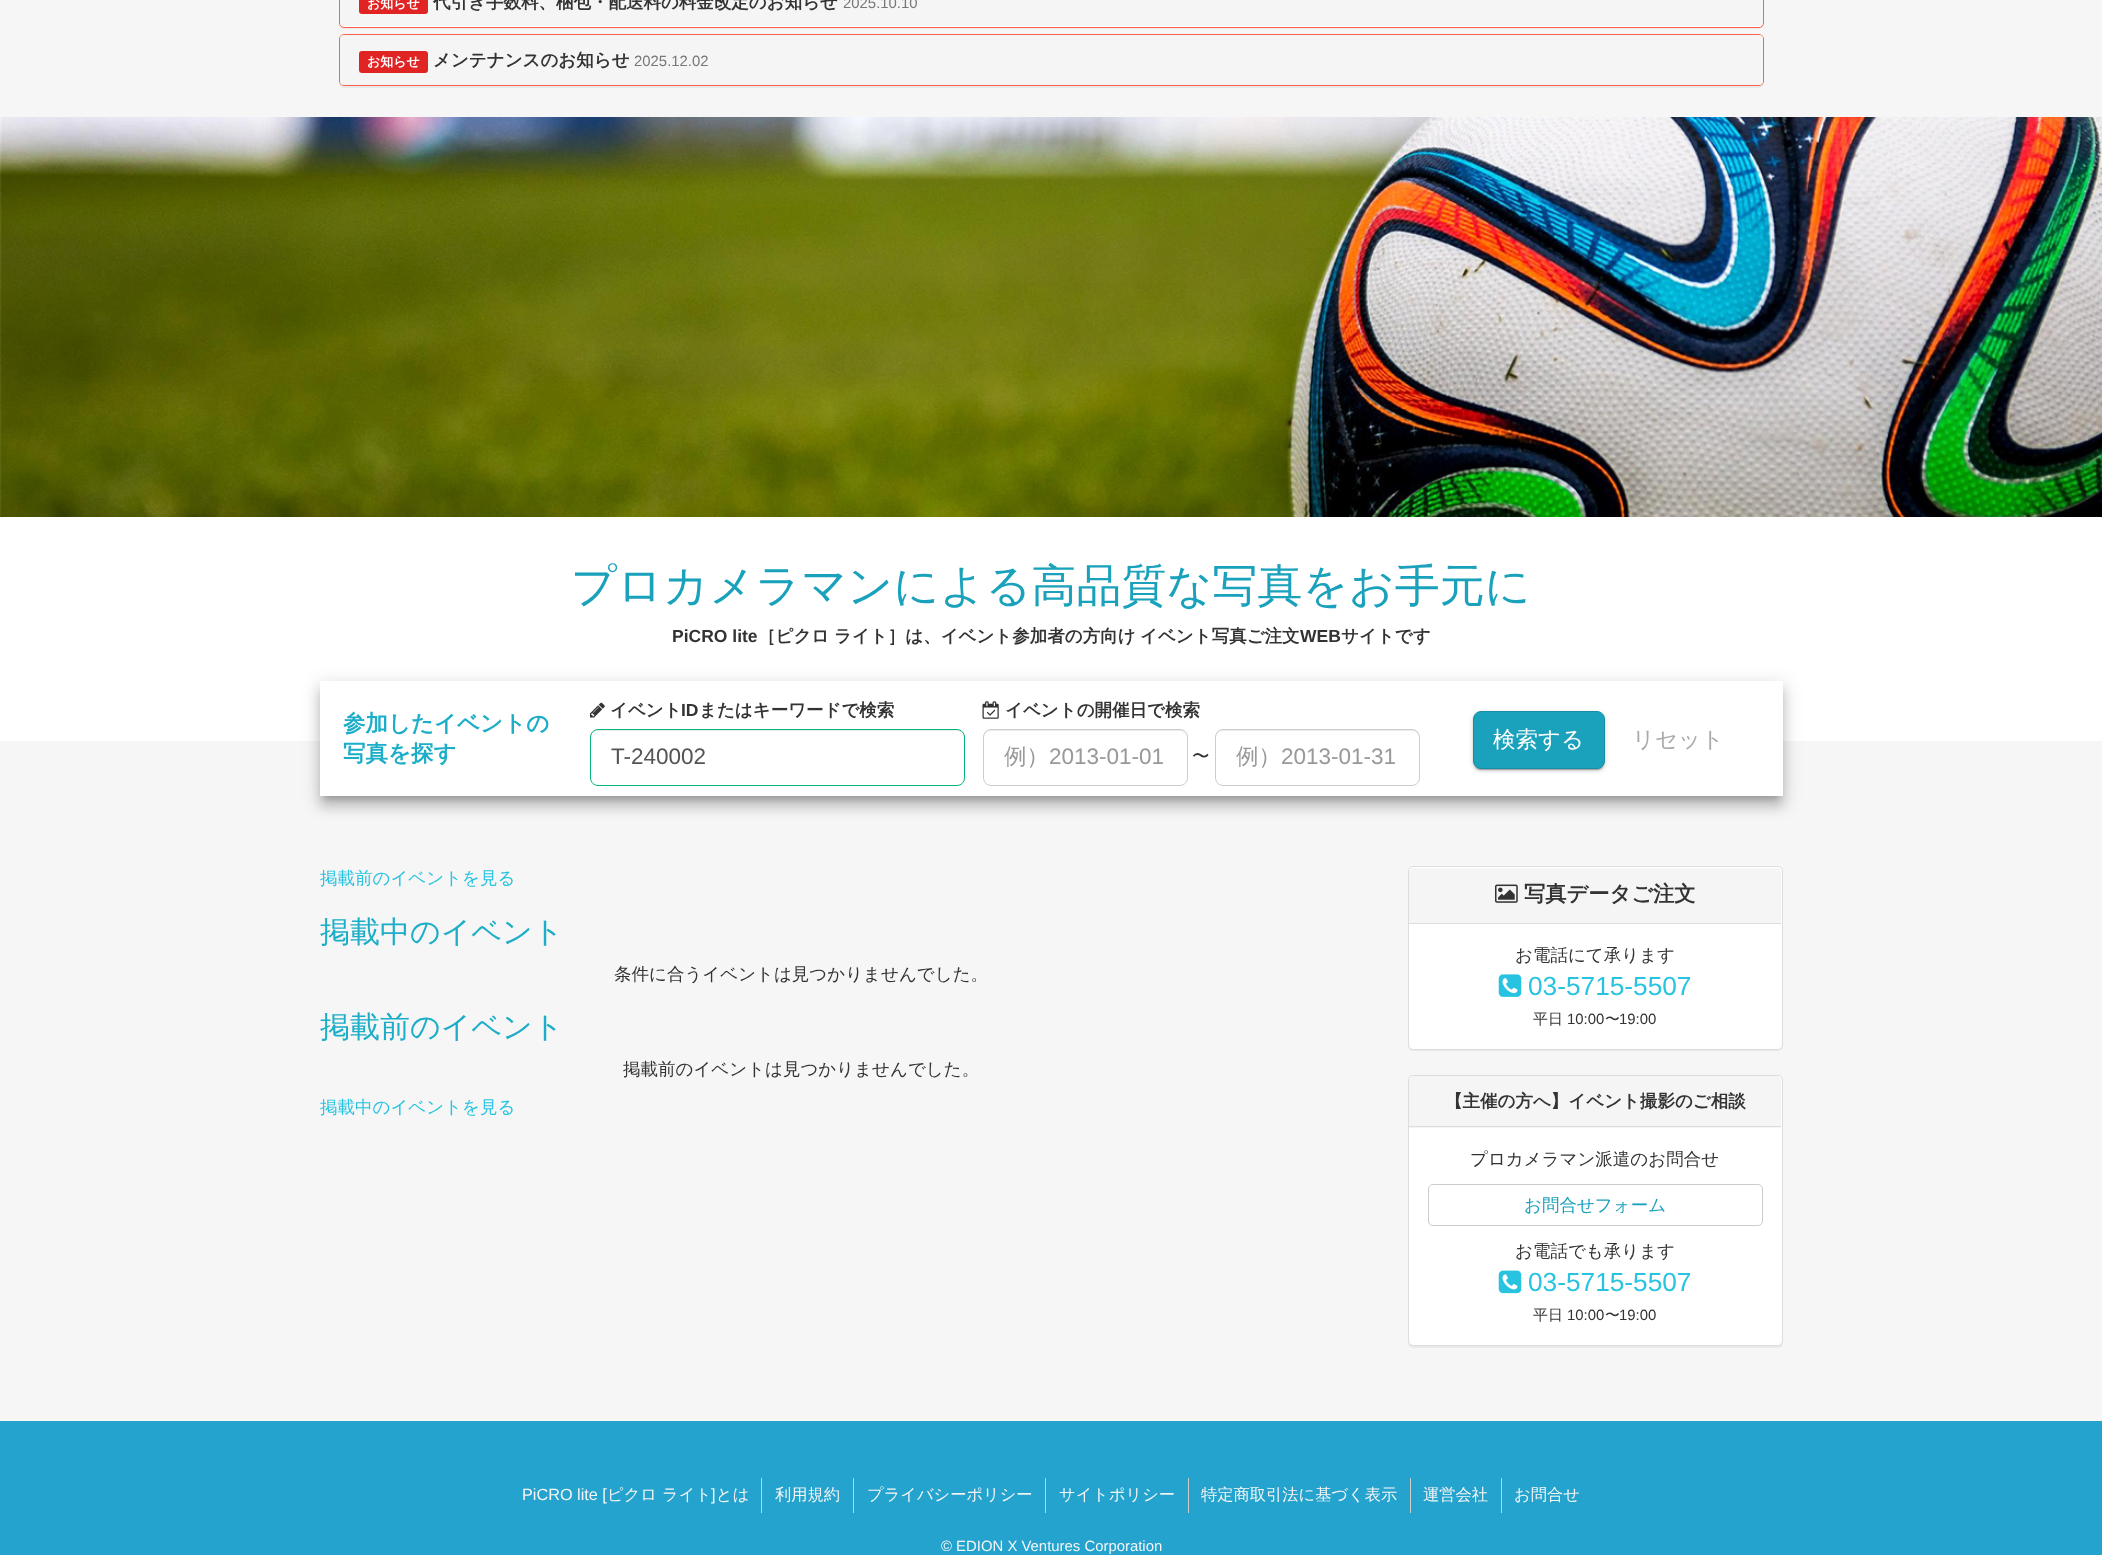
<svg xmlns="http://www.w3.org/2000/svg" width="2102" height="1555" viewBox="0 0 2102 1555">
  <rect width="100%" height="100%" fill="#f6f6f6"/>
  <rect x="339" y="-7" width="1425" height="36" rx="5" fill="#0000000d" filter="blur(0.5px)"/>
  <rect x="339.5" y="-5.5" width="1424" height="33" rx="4.5" fill="#fff" stroke="#ff6347"/>
  <rect x="340" y="-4" width="1423" height="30" rx="4" fill="#f5f5f5"/>
  <rect x="359" y="-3" width="69" height="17" rx="3" fill="#e02424"/>
  <rect x="339" y="35" width="1425" height="53" rx="5" fill="#0000000d" filter="blur(0.5px)"/>
  <rect x="339.5" y="34.5" width="1424" height="51" rx="4.5" fill="none" stroke="#ff6347"/>
  <rect x="340" y="35" width="1423" height="50" rx="4" fill="#f5f5f5"/>
  <rect x="359" y="51" width="69" height="22" rx="3" fill="#e02424"/>
  <rect y="118" width="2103" height="400" rx="5" fill="#fff"/>
  <image x="0" y="117" width="2102" height="400" href="img/1.png"/>
  <path d="M0 518h2102v223H0z" fill="#fff"/>
  <path d="M324 691h1455v108H324z" fill="#00000033" filter="blur(3px)"/>
  <path d="M318 683h1467v120H318z" fill="#0000001f" filter="blur(9px)"/>
  <path d="M319 690h1465v118H319z" fill="#00000024" filter="blur(6px)"/>
  <path d="M320 681h1463v115H320z" fill="#fff"/>
  <image x="590" y="702" width="15" height="16" href="img/2.png"/>
  <path d="M598 731H958C961 731 964 734 964 738V736C964 733 961 730 958 730H597C594 730 591 733 591 736V738C591 734 594 731 598 731Z" fill="#ececec"/>
  <rect x="590.5" y="729.5" width="374" height="56" rx="7.5" fill="none" stroke="#02b774"/>
  <image x="982" y="701" width="17" height="18" href="img/3.png"/>
  <path d="M990 731H1180C1183 731 1186 734 1186 738V736C1186 733 1183 730 1180 730H990C987 730 984 733 984 736V738C984 734 987 731 990 731Z" fill="#ececec"/>
  <rect x="983.5" y="729.5" width="204" height="56" rx="7.5" fill="none" stroke="#ccc"/>
  <path d="M1222 731H1412C1416 731 1419 734 1419 738V736C1419 733 1416 730 1413 730H1222C1219 730 1216 733 1216 736V738C1216 734 1219 731 1222 731Z" fill="#ececec"/>
  <rect x="1215.5" y="729.5" width="204" height="56" rx="7.5" fill="none" stroke="#ccc"/>
  <rect x="1473" y="713" width="132" height="57" rx="8" fill="#0000001f" filter="blur(3px)"/>
  <rect x="1475" y="718" width="128" height="52" rx="5" fill="#00000033" filter="blur(0.5px)"/>
  <rect x="1473" y="714" width="132" height="57" rx="8" fill="#00000024" filter="blur(1px)"/>
  <rect x="1473.5" y="711.5" width="131" height="57" rx="7.5" fill="#1aa1bb" stroke="#178ea5"/>
  <rect x="1408" y="868" width="375" height="183" rx="5" fill="#0000000d" filter="blur(0.5px)"/>
  <rect x="1408.5" y="866.5" width="374" height="183" rx="4.5" fill="#fff" stroke="#ddd"/>
  <path d="M1413 868H1777C1779 868 1781 870 1781 872V924H1409V872C1409 870 1411 868 1413 868Z" fill="#f5f5f5"/>
  <path d="M1409 923h372v1H1409z" fill="#ddd"/>
  <image x="1495" y="884" width="23" height="19" href="img/4.png"/>
  <image x="1498" y="974" width="24" height="23" href="img/5.png"/>
  <rect x="1408" y="1076" width="375" height="272" rx="5" fill="#0000000d" filter="blur(0.5px)"/>
  <rect x="1408.5" y="1075.5" width="374" height="270" rx="4.5" fill="#fff" stroke="#ddd"/>
  <path d="M1413 1076H1777C1779 1076 1781 1078 1781 1080V1128H1409V1080C1409 1078 1411 1076 1413 1076Z" fill="#f5f5f5"/>
  <path d="M1409 1126h372v1H1409z" fill="#ddd"/>
  <rect x="1428.5" y="1184.5" width="334" height="41" rx="4.5" fill="none" stroke="#ccc"/>
  <image x="1498" y="1270" width="24" height="24" href="img/6.png"/>
  <path d="M0 1421h2102v134H0z" fill="#23a3ce"/>
  <path d="M761 1478h1v35H761z" fill="#cdcdcd"/>
  <path d="M853 1478h1v35H853z" fill="#cdcdcd"/>
  <path d="M1045 1478h1v35H1045z" fill="#cdcdcd"/>
  <path d="M1188 1478h1v35H1188z" fill="#cdcdcd"/>
  <path d="M1410 1478h1v35H1410z" fill="#cdcdcd"/>
  <path d="M1501 1478h1v35H1501z" fill="#cdcdcd"/>
  <text x="367" y="8" font-family="WenQuanYi Zen Hei" font-size="13" font-weight="bold" fill="#fff">お知らせ</text>
  <text x="433" y="8" font-family="WenQuanYi Zen Hei" font-size="17.5" font-weight="bold" fill="#333">代引き手数料、梱包・配送料の料金改定のお知らせ</text>
  <text x="843" y="8" font-family="Liberation Sans" font-size="14.9" fill="#777">2025.10.10</text>
  <text x="367" y="66" font-family="WenQuanYi Zen Hei" font-size="13" font-weight="bold" fill="#fff">お知らせ</text>
  <text x="433" y="66" font-family="WenQuanYi Zen Hei" font-size="17.5" font-weight="bold" fill="#333">メンテナンスのお知らせ</text>
  <text x="634" y="66" font-family="Liberation Sans" font-size="14.9" fill="#777">2025.12.02</text>
  <text x="571" y="601" font-family="WenQuanYi Zen Hei" font-size="45" font-weight="500" fill="#1aa1bb">プロカメラマンによる高品質な写真をお手元に</text>
  <text x="672" y="642" font-family="Liberation Sans" font-size="17.5" font-weight="bold" fill="#333">PiCRO lite</text>
  <g font-family="WenQuanYi Zen Hei" font-size="17.5" font-weight="bold" fill="#333">
    <text x="758" y="642">［ピクロ</text>
    <text x="834" y="642">ライト］は、イベント参加者の方向け</text>
    <text x="1140" y="642">イベント写真ご注文</text>
  </g>
  <text x="1300" y="642" font-family="Liberation Sans" font-size="17.5" font-weight="bold" fill="#333">WEB</text>
  <text x="1341" y="642" font-family="WenQuanYi Zen Hei" font-size="17.5" font-weight="bold" fill="#333">サイトです</text>
  <g font-family="WenQuanYi Zen Hei" font-size="22.5" font-weight="bold" fill="#1cadc8">
    <text x="343" y="731">参加したイベントの</text>
    <text x="343" y="761">写真を探す</text>
  </g>
  <text x="610" y="716" font-family="WenQuanYi Zen Hei" font-size="17.5" font-weight="bold" fill="#333">イベント</text>
  <text x="681" y="716" font-family="Liberation Sans" font-size="17.5" font-weight="bold" fill="#333">ID</text>
  <text x="699" y="716" font-family="WenQuanYi Zen Hei" font-size="17.5" font-weight="bold" fill="#333">またはキーワードで検索</text>
  <text x="611" y="764" font-family="Liberation Sans" font-size="22.5" fill="#555">T-240002</text>
  <text x="1005" y="716" font-family="WenQuanYi Zen Hei" font-size="17.5" font-weight="bold" fill="#333">イベントの開催日で検索</text>
  <text x="1004" y="764" font-family="WenQuanYi Zen Hei" font-size="22.5" font-weight="500" fill="#999">例）</text>
  <text x="1049" y="764" font-family="Liberation Sans" font-size="22.5" fill="#999">2013-01-01</text>
  <text x="1192" y="762" font-family="WenQuanYi Zen Hei" font-size="17.5" font-weight="500" fill="#333">〜</text>
  <text x="1236" y="764" font-family="WenQuanYi Zen Hei" font-size="22.5" font-weight="500" fill="#999">例）</text>
  <text x="1281" y="764" font-family="Liberation Sans" font-size="22.5" fill="#999">2013-01-31</text>
  <text x="1493" y="747" font-family="WenQuanYi Zen Hei" font-size="22.5" font-weight="500" fill="#fff">検索する</text>
  <text x="1632" y="747" font-family="WenQuanYi Zen Hei" font-size="22.5" font-weight="500" fill="#aaa">リセット</text>
  <text x="320" y="884" font-family="WenQuanYi Zen Hei" font-size="17.5" font-weight="500" fill="#27c3e1">掲載前のイベントを見る</text>
  <text x="320" y="942" font-family="WenQuanYi Zen Hei" font-size="30" font-weight="500" fill="#1cadc8">掲載中のイベント</text>
  <text x="614" y="980" font-family="WenQuanYi Zen Hei" font-size="17.5" font-weight="500" fill="#333">条件に合うイベントは見つかりませんでした。</text>
  <text x="320" y="1037" font-family="WenQuanYi Zen Hei" font-size="30" font-weight="500" fill="#1cadc8">掲載前のイベント</text>
  <text x="623" y="1075" font-family="WenQuanYi Zen Hei" font-size="17.5" font-weight="500" fill="#333">掲載前のイベントは見つかりませんでした。</text>
  <text x="320" y="1113" font-family="WenQuanYi Zen Hei" font-size="17.5" font-weight="500" fill="#27c3e1">掲載中のイベントを見る</text>
  <text x="1524" y="901" font-family="WenQuanYi Zen Hei" font-size="21.25" font-weight="bold" fill="#333">写真データご注文</text>
  <text x="1515" y="961" font-family="WenQuanYi Zen Hei" font-size="17.5" font-weight="500" fill="#333">お電話にて承ります</text>
  <text x="1528" y="995" font-family="Liberation Sans" font-size="26.25" fill="#27c3e1">03-5715-5507</text>
  <text x="1533" y="1024" font-family="WenQuanYi Zen Hei" font-size="14.9" font-weight="500" fill="#333">平日</text>
  <text x="1567" y="1024" font-family="Liberation Sans" font-size="14.9" fill="#333">10:00</text>
  <text x="1605" y="1024" font-family="WenQuanYi Zen Hei" font-size="14.9" font-weight="500" fill="#333">〜</text>
  <text x="1619" y="1024" font-family="Liberation Sans" font-size="14.9" fill="#333">19:00</text>
  <text x="1445" y="1107" font-family="WenQuanYi Zen Hei" font-size="17.5" font-weight="bold" fill="#333">【主催の方へ】イベント撮影のご相談</text>
  <text x="1470" y="1165" font-family="WenQuanYi Zen Hei" font-size="17.5" font-weight="500" fill="#333">プロカメラマン派遣のお問合せ</text>
  <text x="1524" y="1211" font-family="WenQuanYi Zen Hei" font-size="17.5" font-weight="500" fill="#1aa1bb">お問合せフォーム</text>
  <text x="1515" y="1257" font-family="WenQuanYi Zen Hei" font-size="17.5" font-weight="500" fill="#333">お電話でも承ります</text>
  <text x="1528" y="1291" font-family="Liberation Sans" font-size="26.25" fill="#27c3e1">03-5715-5507</text>
  <text x="1533" y="1320" font-family="WenQuanYi Zen Hei" font-size="14.9" font-weight="500" fill="#333">平日</text>
  <text x="1567" y="1320" font-family="Liberation Sans" font-size="14.9" fill="#333">10:00</text>
  <text x="1605" y="1320" font-family="WenQuanYi Zen Hei" font-size="14.9" font-weight="500" fill="#333">〜</text>
  <text x="1619" y="1320" font-family="Liberation Sans" font-size="14.9" fill="#333">19:00</text>
  <text x="522" y="1500" font-family="Liberation Sans" font-size="16.25" fill="#f5f5f5">PiCRO lite [</text>
  <g font-family="WenQuanYi Zen Hei" font-size="16.25" font-weight="500" fill="#f5f5f5">
    <text x="607" y="1500">ピクロ</text>
    <text x="662" y="1500">ライト</text>
  </g>
  <text x="711" y="1500" font-family="Liberation Sans" font-size="16.25" fill="#f5f5f5">]</text>
  <g font-family="WenQuanYi Zen Hei" font-size="16.25" font-weight="500" fill="#f5f5f5">
    <text x="716" y="1500">とは</text>
    <text x="775" y="1500">利用規約</text>
    <text x="867" y="1500">プライバシーポリシー</text>
    <text x="1059" y="1500">サイトポリシー</text>
    <text x="1201" y="1500">特定商取引法に基づく表示</text>
    <text x="1423" y="1500">運営会社</text>
    <text x="1514" y="1500">お問合せ</text>
  </g>
  <text x="941" y="1551" font-family="Liberation Sans" font-size="14.9" fill="#f5f5f5">© EDION X Ventures Corporation</text>
</svg>
